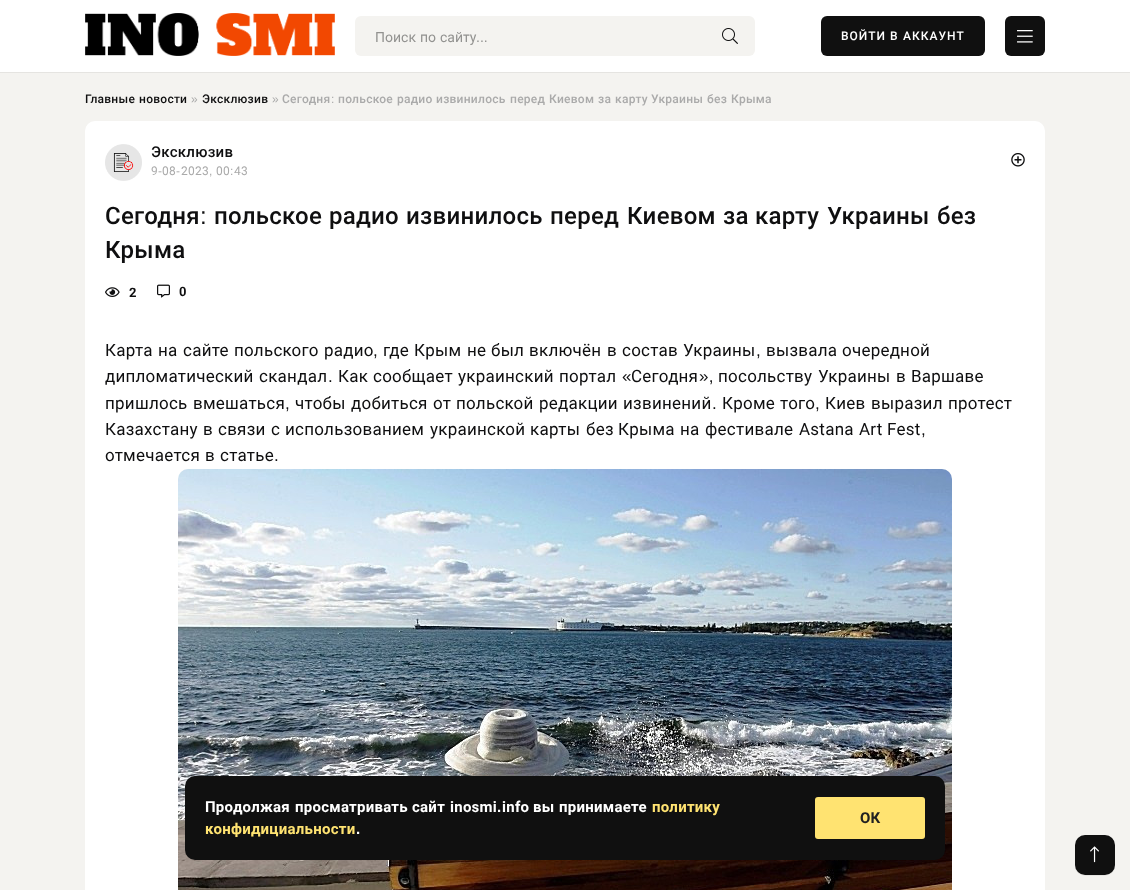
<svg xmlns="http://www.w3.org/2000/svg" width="1130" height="890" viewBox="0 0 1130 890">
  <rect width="100%" height="100%" fill="#f4f3f0"/>
  <path d="M0 72h1130v1H0z" fill="#e5e4e1"/>
  <path d="M0 0h1130v72H0z" fill="#fff"/>
  <image x="85" y="13" width="250" height="43" href="img/1.png"/>
  <rect x="355" y="16" width="400" height="40" rx="6" fill="#f4f3f0"/>
  <image x="722" y="28" width="16" height="16" href="img/2.png"/>
  <rect x="821" y="16" width="164" height="40" rx="6" fill="#101010"/>
  <rect x="1005" y="16" width="40" height="40" rx="6" fill="#101010"/>
  <image x="1017" y="30" width="16" height="13" href="img/3.png"/>
  <rect x="85" y="121" width="960" height="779" rx="10" fill="#fff"/>
  <image x="105" y="144" width="37" height="37" href="img/4.png"/>
  <image x="1011" y="153" width="14" height="14" href="img/5.png"/>
  <image x="105" y="287" width="15" height="10" href="img/6.png"/>
  <image x="157" y="284" width="13" height="14" href="img/7.png"/>
  <image x="178" y="469" width="774" height="421" href="img/8.png"/>
  <rect x="185" y="776" width="760" height="84" rx="10" fill="#101010"/>
  <rect x="815" y="797" width="110" height="42" rx="3" fill="#ffe371"/>
  <path d="M1075 865C1075 877 1086 876 1095 876C1104 876 1115 877 1115 865C1115 876 1103 875 1095 875C1087 875 1075 876 1075 865Z" fill="#e5e4e1"/>
  <rect x="1075" y="835" width="40" height="40" rx="10" fill="#101010"/>
  <image x="1090" y="846" width="9" height="17" href="img/9.png"/>
  <g font-family="Roboto" font-size="14" fill="#929290">
    <text x="375" y="42">Поиск</text>
    <text x="420" y="42">по</text>
    <text x="440" y="42">сайту</text>
  </g>
  <text x="476" y="42" font-family="Liberation Sans" font-size="14" fill="#929290">...</text>
  <g font-family="Roboto" font-size="12" font-weight="500" letter-spacing="1" fill="#fff">
    <text x="841" y="40">ВОЙТИ</text>
    <text x="890" y="40">В</text>
    <text x="903" y="40">АККАУНТ</text>
  </g>
  <g font-family="Roboto" font-size="12" font-weight="500" letter-spacing="0.25" fill="#0f0f10">
    <text x="85" y="103">Главные</text>
    <text x="139" y="103">новости</text>
  </g>
  <text x="191" y="103" font-family="Liberation Sans" font-size="12" letter-spacing="0.25" fill="#aaa">»</text>
  <text x="202" y="103" font-family="Roboto" font-size="12" font-weight="500" letter-spacing="0.25" fill="#0f0f10">Эксклюзив</text>
  <text x="272" y="103" font-family="Liberation Sans" font-size="12" letter-spacing="0.25" fill="#aaa">»</text>
  <text x="282" y="103" font-family="Roboto" font-size="12" font-weight="500" letter-spacing="0.25" fill="#aaa">Сегодня</text>
  <text x="331" y="103" font-family="Liberation Sans" font-size="12" letter-spacing="0.25" fill="#aaa">:</text>
  <g font-family="Roboto" font-size="12" font-weight="500" letter-spacing="0.25" fill="#aaa">
    <text x="338" y="103">польское</text>
    <text x="397" y="103">радио</text>
    <text x="436" y="103">извинилось</text>
    <text x="510" y="103">перед</text>
    <text x="549" y="103">Киевом</text>
    <text x="598" y="103">за</text>
    <text x="615" y="103">карту</text>
    <text x="651" y="103">Украины</text>
    <text x="707" y="103">без</text>
    <text x="731" y="103">Крыма</text>
  </g>
  <text x="151" y="157" font-family="Roboto" font-size="15" font-weight="500" letter-spacing="0.25" fill="#0f0f10">Эксклюзив</text>
  <text x="151" y="175" font-family="Roboto" font-size="12" letter-spacing="0.25" fill="#aaa">9</text>
  <text x="158" y="175" font-family="Liberation Sans" font-size="12" letter-spacing="0.25" fill="#aaa">-</text>
  <text x="162" y="175" font-family="Roboto" font-size="12" letter-spacing="0.25" fill="#aaa">08</text>
  <text x="176" y="175" font-family="Liberation Sans" font-size="12" letter-spacing="0.25" fill="#aaa">-</text>
  <g font-family="Roboto" font-size="12" letter-spacing="0.25" fill="#aaa">
    <text x="181" y="175">2023</text>
    <text x="216" y="175">00</text>
  </g>
  <text x="230" y="175" font-family="Liberation Sans" font-size="12" letter-spacing="0.25" fill="#aaa">:</text>
  <text x="234" y="175" font-family="Roboto" font-size="12" letter-spacing="0.25" fill="#aaa">43</text>
  <text x="209" y="175" font-family="Liberation Sans" font-size="12" letter-spacing="0.25" fill="#aaa">,</text>
  <text x="105" y="224" font-family="Roboto" font-size="24" font-weight="500" letter-spacing="0.25" fill="#0f0f10">Сегодня</text>
  <text x="200" y="224" font-family="Liberation Sans" font-size="24" letter-spacing="0.25" fill="#0f0f10">:</text>
  <g font-family="Roboto" font-size="24" font-weight="500" letter-spacing="0.25" fill="#0f0f10">
    <text x="214" y="224">польское</text>
    <text x="329" y="224">радио</text>
    <text x="406" y="224">извинилось</text>
    <text x="550" y="224">перед</text>
    <text x="627" y="224">Киевом</text>
    <text x="723" y="224">за</text>
    <text x="755" y="224">карту</text>
    <text x="827" y="224">Украины</text>
    <text x="937" y="224">без</text>
    <text x="105" y="258">Крыма</text>
  </g>
  <g font-family="Roboto" font-size="13" font-weight="bold" letter-spacing="0.25" fill="#0f0f10">
    <text x="129" y="297">2</text>
    <text x="179" y="296">0</text>
  </g>
  <g font-family="Roboto" font-size="17" letter-spacing="0.25" fill="#0f0f10">
    <text x="105" y="356">Карта</text>
    <text x="158" y="356">на</text>
    <text x="183" y="356">сайте</text>
    <text x="234" y="356">польского</text>
    <text x="324" y="356">радио</text>
    <text x="383" y="356">где</text>
    <text x="414" y="356">Крым</text>
    <text x="467" y="356">не</text>
    <text x="491" y="356">был</text>
    <text x="529" y="356">включён</text>
    <text x="607" y="356">в</text>
    <text x="622" y="356">состав</text>
    <text x="683" y="356">Украины</text>
    <text x="766" y="356">вызвала</text>
    <text x="842" y="356">очередной</text>
  </g>
  <g font-family="Liberation Sans" font-size="17" letter-spacing="0.25" fill="#0f0f10">
    <text x="373" y="356">,</text>
    <text x="756" y="356">,</text>
  </g>
  <g font-family="Roboto" font-size="17" letter-spacing="0.25" fill="#0f0f10">
    <text x="105" y="382">дипломатический</text>
    <text x="259" y="382">скандал</text>
  </g>
  <text x="328" y="382" font-family="Liberation Sans" font-size="17" letter-spacing="0.25" fill="#0f0f10">.</text>
  <g font-family="Roboto" font-size="17" letter-spacing="0.25" fill="#0f0f10">
    <text x="338" y="382">Как</text>
    <text x="373" y="382">сообщает</text>
    <text x="458" y="382">украинский</text>
    <text x="559" y="382">портал</text>
  </g>
  <text x="622" y="382" font-family="Liberation Sans" font-size="17" letter-spacing="0.25" fill="#0f0f10">«</text>
  <text x="631" y="382" font-family="Roboto" font-size="17" letter-spacing="0.25" fill="#0f0f10">Сегодня</text>
  <text x="699" y="382" font-family="Liberation Sans" font-size="17" letter-spacing="0.25" fill="#0f0f10">»,</text>
  <g font-family="Roboto" font-size="17" letter-spacing="0.25" fill="#0f0f10">
    <text x="718" y="382">посольству</text>
    <text x="818" y="382">Украины</text>
    <text x="896" y="382">в</text>
    <text x="911" y="382">Варшаве</text>
    <text x="105" y="409">пришлось</text>
    <text x="193" y="409">вмешаться</text>
  </g>
  <text x="285" y="409" font-family="Liberation Sans" font-size="17" letter-spacing="0.25" fill="#0f0f10">,</text>
  <g font-family="Roboto" font-size="17" letter-spacing="0.25" fill="#0f0f10">
    <text x="295" y="409">чтобы</text>
    <text x="351" y="409">добиться</text>
    <text x="433" y="409">от</text>
    <text x="456" y="409">польской</text>
    <text x="539" y="409">редакции</text>
    <text x="623" y="409">извинений</text>
  </g>
  <text x="712" y="409" font-family="Liberation Sans" font-size="17" letter-spacing="0.25" fill="#0f0f10">.</text>
  <g font-family="Roboto" font-size="17" letter-spacing="0.25" fill="#0f0f10">
    <text x="722" y="409">Кроме</text>
    <text x="780" y="409">того</text>
  </g>
  <text x="815" y="409" font-family="Liberation Sans" font-size="17" letter-spacing="0.25" fill="#0f0f10">,</text>
  <g font-family="Roboto" font-size="17" letter-spacing="0.25" fill="#0f0f10">
    <text x="825" y="409">Киев</text>
    <text x="871" y="409">выразил</text>
    <text x="948" y="409">протест</text>
    <text x="105" y="435">Казахстану</text>
    <text x="203" y="435">в</text>
    <text x="218" y="435">связи</text>
    <text x="271" y="435">с</text>
    <text x="285" y="435">использованием</text>
    <text x="430" y="435">украинской</text>
    <text x="530" y="435">карты</text>
    <text x="586" y="435">без</text>
    <text x="618" y="435">Крыма</text>
    <text x="680" y="435">на</text>
    <text x="705" y="435">фестивале</text>
    <text x="799" y="435">Astana</text>
    <text x="859" y="435">Art</text>
    <text x="887" y="435">Fest</text>
  </g>
  <text x="921" y="435" font-family="Liberation Sans" font-size="17" letter-spacing="0.25" fill="#0f0f10">,</text>
  <g font-family="Roboto" font-size="17" letter-spacing="0.25" fill="#0f0f10">
    <text x="105" y="461">отмечается</text>
    <text x="205" y="461">в</text>
    <text x="220" y="461">статье</text>
  </g>
  <text x="274" y="461" font-family="Liberation Sans" font-size="17" letter-spacing="0.25" fill="#0f0f10">.</text>
  <g font-family="Roboto" font-size="15" font-weight="bold" letter-spacing="0.25" fill="#fff">
    <text x="205" y="812">Продолжая</text>
    <text x="295" y="812">просматривать</text>
    <text x="412" y="812">сайт</text>
    <text x="450" y="812">inosmi</text>
  </g>
  <text x="497" y="812" font-family="Liberation Sans" font-size="15" font-weight="bold" letter-spacing="0.25" fill="#fff">.</text>
  <g font-family="Roboto" font-size="15" font-weight="bold" letter-spacing="0.25" fill="#fff">
    <text x="502" y="812">info</text>
    <text x="533" y="812">вы</text>
    <text x="559" y="812">принимаете</text>
  </g>
  <g font-family="Roboto" font-size="15" font-weight="bold" letter-spacing="0.25" fill="#ffe371">
    <text x="652" y="812">политику</text>
    <text x="205" y="834">конфидициальности</text>
  </g>
  <text x="356" y="834" font-family="Liberation Sans" font-size="15" font-weight="bold" letter-spacing="0.25" fill="#fff">.</text>
  <text x="860" y="823" font-family="Roboto" font-size="15" font-weight="bold" letter-spacing="0.25" fill="#212121">ОК</text>
</svg>
